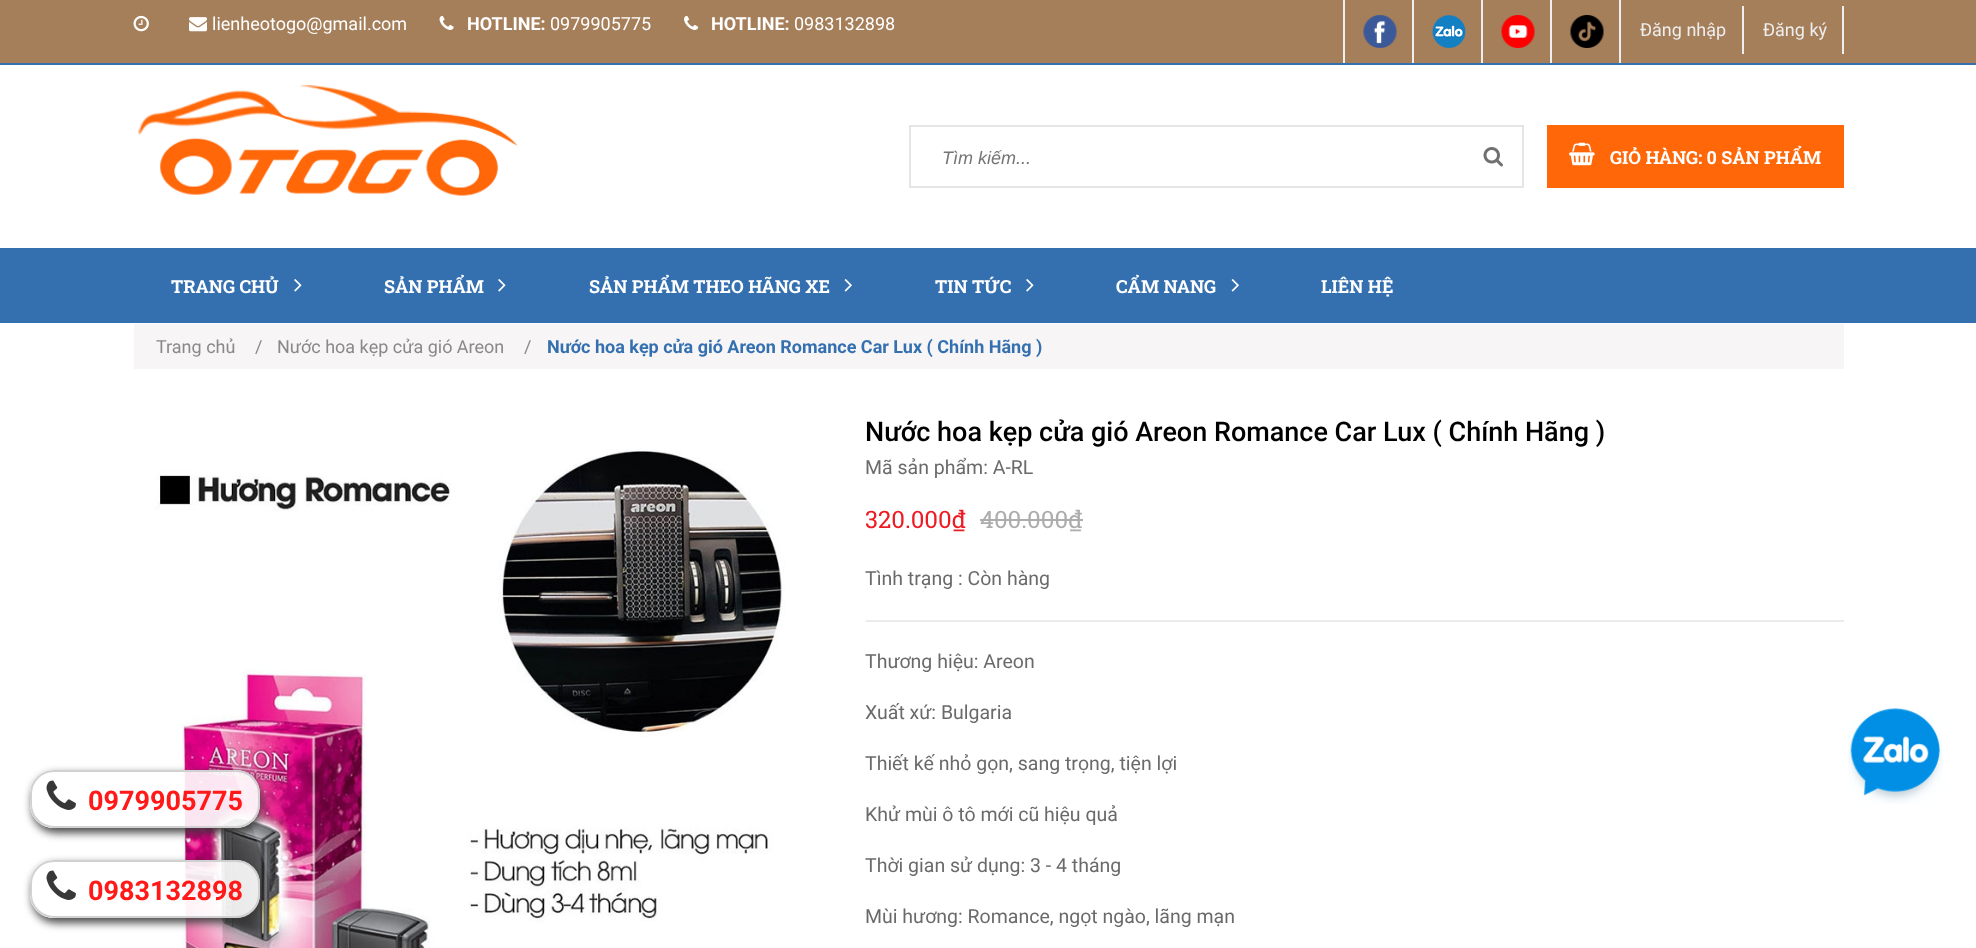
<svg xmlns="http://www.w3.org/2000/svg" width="1976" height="948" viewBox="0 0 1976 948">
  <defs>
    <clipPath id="clip1"><path d="M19 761H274V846H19ZM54 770H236C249.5 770 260 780.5 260 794V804C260 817.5 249.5 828 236 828H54C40.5 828 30 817.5 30 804V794C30 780.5 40.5 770 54 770Z" clip-rule="evenodd"/></clipPath>
    <clipPath id="clip2"><path d="M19 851H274V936H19ZM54 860H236C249.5 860 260 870.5 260 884V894C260 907.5 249.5 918 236 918H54C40.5 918 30 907.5 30 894V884C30 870.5 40.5 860 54 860Z" clip-rule="evenodd"/></clipPath>
  </defs>
  <rect width="100%" height="100%" fill="#fff"/>
  <path d="M0 0h1976v63H0z" fill="#a57e5a"/>
  <path d="M0 63h1976v2H0z" fill="#3470b0"/>
  <image x="133" y="15" width="16" height="17" href="img/1.png"/>
  <image x="189" y="17" width="18" height="15" href="img/2.png"/>
  <image x="439" y="15" width="15" height="15" href="img/3.png"/>
  <image x="684" y="15" width="15" height="15" href="img/4.png"/>
  <path d="M1412 0h2v63H1412z" fill="#eee"/>
  <path d="M1343 0h2v63H1343z" fill="#eee"/>
  <image x="1363" y="15" width="34" height="33" href="img/5.png"/>
  <path d="M1481 0h2v63H1481z" fill="#eee"/>
  <image x="1432" y="15" width="34" height="33" href="img/6.png"/>
  <path d="M1550 0h2v63H1550z" fill="#eee"/>
  <image x="1501" y="15" width="34" height="33" href="img/7.png"/>
  <path d="M1619 0h2v63H1619z" fill="#eee"/>
  <image x="1570" y="15" width="34" height="33" href="img/8.png"/>
  <path d="M1742 6h2v48H1742z" fill="#eee"/>
  <path d="M1842 6h2v48H1842z" fill="#eee"/>
  <image x="138" y="85" width="380" height="111" href="img/9.png"/>
  <path d="M910 126h613v61H910z" fill="none" stroke="#e5e5e5" stroke-width="2"/>
  <image x="1483" y="147" width="20" height="20" href="img/10.png"/>
  <path d="M1547 125h297v63H1547z" fill="#ff6709"/>
  <image x="1569" y="142" width="26" height="24" href="img/11.png"/>
  <path d="M0 248h1976v75H0z" fill="#3470b0"/>
  <image x="294" y="279" width="8" height="13" href="img/12.png"/>
  <image x="498" y="279" width="8" height="13" href="img/12.png"/>
  <image x="844" y="279" width="8" height="13" href="img/13.png"/>
  <image x="1026" y="279" width="8" height="13" href="img/12.png"/>
  <image x="1231" y="279" width="8" height="13" href="img/13.png"/>
  <path d="M134 324h1710v45H134z" fill="#f7f5f5"/>
  <image x="154" y="449" width="631" height="499" href="img/14.png"/>
  <path d="M980 519h103v2H980z" fill="#adadad"/>
  <path d="M866 620h978v2H866z" fill="#ebebeb"/>
  <image x="1848" y="708" width="95" height="96" href="img/15.png"/>
  <g clip-path="url(#clip1)">
    <rect x="32" y="774" width="229" height="59" rx="24" fill="#383838e6" filter="blur(4px)"/>
  </g>
  <rect x="30" y="770" width="230" height="58" rx="24" fill="#ffffffe6"/>
  <rect x="31" y="771" width="228" height="56" rx="23" fill="none" stroke="#cccccce6" stroke-width="2"/>
  <image x="46" y="780" width="30" height="30" href="img/16.png"/>
  <g clip-path="url(#clip2)">
    <rect x="32" y="864" width="229" height="59" rx="24" fill="#383838e6" filter="blur(4px)"/>
  </g>
  <rect x="30" y="860" width="230" height="58" rx="24" fill="#ffffffe6"/>
  <rect x="31" y="861" width="228" height="56" rx="23" fill="none" stroke="#cccccce6" stroke-width="2"/>
  <image x="46" y="870" width="30" height="30" href="img/16.png"/>
  <text x="212" y="30" font-family="Roboto" font-size="18" fill="#fff">lienheotogo@gmail.com</text>
  <text x="467" y="30" font-family="Roboto" font-size="18" font-weight="bold" fill="#fff">HOTLINE:</text>
  <text x="550" y="30" font-family="Roboto" font-size="18" fill="#fff">0979905775</text>
  <text x="711" y="30" font-family="Roboto" font-size="18" font-weight="bold" fill="#fff">HOTLINE:</text>
  <text x="794" y="30" font-family="Roboto" font-size="18" fill="#fff">0983132898</text>
  <g font-family="Roboto" font-size="18" fill="#eee">
    <text x="1640" y="36">Đăng nhập</text>
    <text x="1763" y="36">Đăng ký</text>
  </g>
  <text x="942" y="164" font-family="Liberation Sans" font-size="18" font-style="italic" fill="#757575">Tìm kiếm...</text>
  <g font-family="Roboto Slab" font-size="18" font-weight="bold" fill="#fff">
    <text x="1610" y="164">GIỎ HÀNG: 0 SẢN PHẨM</text>
    <text x="171" y="293">TRANG CHỦ</text>
    <text x="384" y="293">SẢN PHẨM</text>
    <text x="589" y="293">SẢN PHẨM THEO HÃNG XE</text>
    <text x="935" y="293">TIN TỨC</text>
    <text x="1116" y="293">CẨM NANG</text>
    <text x="1321" y="293">LIÊN HỆ</text>
  </g>
  <g font-family="Roboto" font-size="18" fill="#898989">
    <text x="156" y="353">Trang chủ</text>
    <text x="255" y="353">/</text>
    <text x="277" y="353">Nước hoa kẹp cửa gió Areon</text>
    <text x="524" y="353">/</text>
  </g>
  <text x="547" y="353" font-family="Roboto" font-size="18" font-weight="bold" fill="#3470b0">Nước hoa kẹp cửa gió Areon Romance Car Lux ( Chính Hãng )</text>
  <text x="865" y="441" font-family="Roboto" font-size="27" font-weight="500" fill="#000">Nước hoa kẹp cửa gió Areon Romance Car Lux ( Chính Hãng )</text>
  <text x="865" y="474" font-family="Roboto" font-size="19.5" fill="#6a6a6a">Mã sản phẩm: A-RL</text>
  <text x="865" y="528" font-family="Roboto Slab" font-size="24" fill="#ed1c24">320.000₫</text>
  <text x="980" y="528" font-family="Roboto Slab" font-size="24" fill="#adadad">400.000₫</text>
  <g font-family="Roboto" font-size="19.5" fill="#6a6a6a">
    <text x="865" y="585">Tình trạng : Còn hàng</text>
    <text x="865" y="668">Thương hiệu: Areon</text>
    <text x="865" y="719">Xuất xứ: Bulgaria</text>
    <text x="865" y="770">Thiết kế nhỏ gọn, sang trọng, tiện lợi</text>
    <text x="865" y="821">Khử mùi ô tô mới cũ hiệu quả</text>
    <text x="865" y="872">Thời gian sử dụng: 3 - 4 tháng</text>
    <text x="865" y="923">Mùi hương: Romance, ngọt ngào, lãng mạn</text>
  </g>
  <g font-family="Roboto" font-size="27" font-weight="bold" fill="#ff1919">
    <text x="88" y="810">0979905775</text>
    <text x="88" y="900">0983132898</text>
  </g>
</svg>
